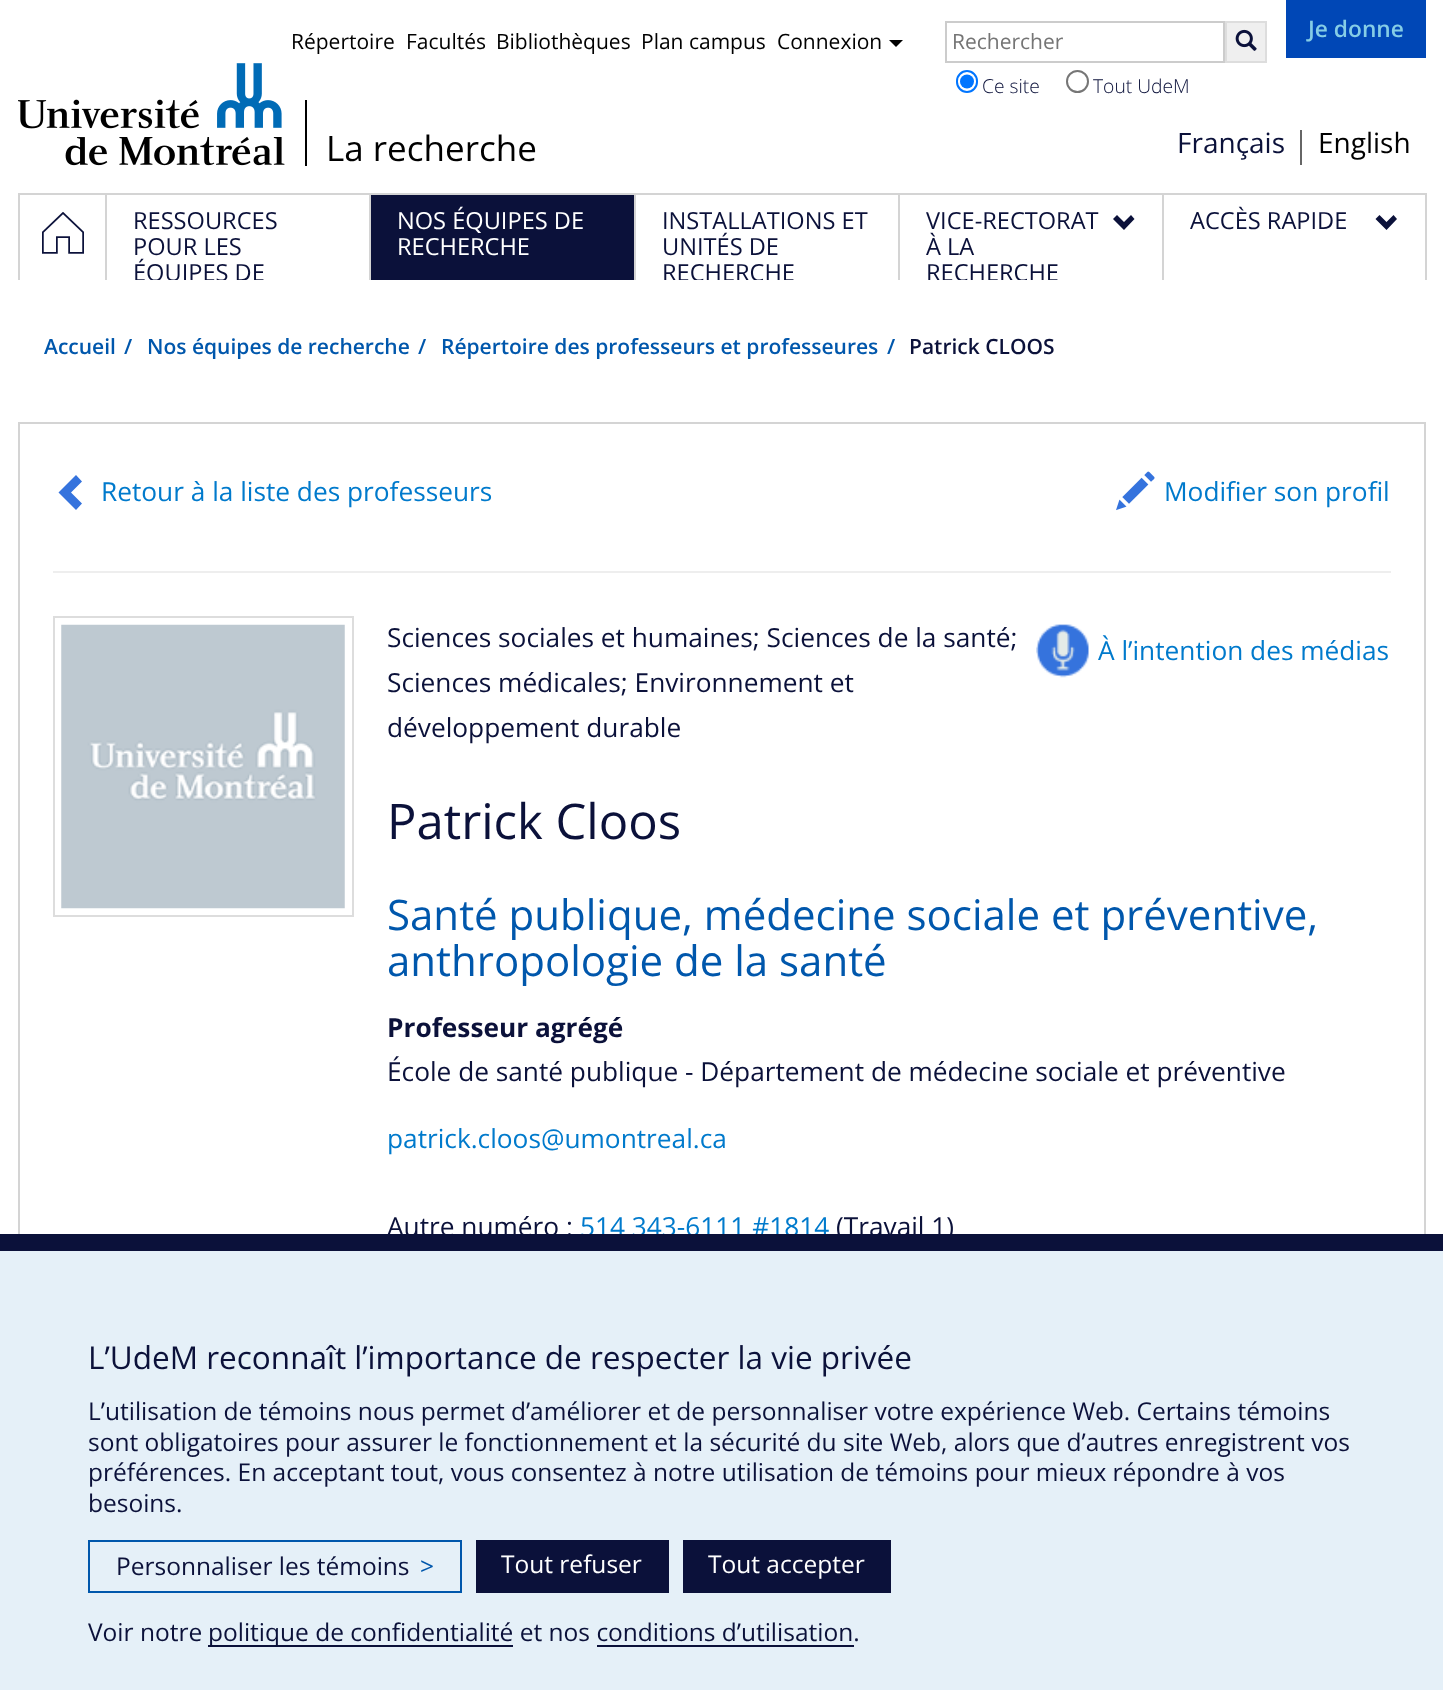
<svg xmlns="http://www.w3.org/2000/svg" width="1443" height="1690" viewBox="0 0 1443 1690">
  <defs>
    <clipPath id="clip1"><path d="M107 194h262v86H107z"/></clipPath>
    <clipPath id="clip2"><path d="M635 194h263v86H635z"/></clipPath>
    <clipPath id="clip3"><path d="M900 194h262v86H900z"/></clipPath>
  </defs>
  <rect width="100%" height="100%" fill="#fff"/>
  <path d="M889 40H903L896 47Z" fill="#000"/>
  <path d="M946 22h278v40H946z" fill="none" stroke="#ccc" stroke-width="2"/>
  <path d="M1226 22h40v40H1226z" fill="#efefef" stroke="#ddd" stroke-width="2"/>
  <image x="1235" y="29" width="22" height="22" href="img/1.png"/>
  <rect x="957" y="71" width="20" height="21" rx="10" fill="none" stroke="#0075ff" stroke-width="2"/>
  <circle cx="967" cy="81.5" r="7" fill="#0075ff"/>
  <circle cx="1077.5" cy="81.5" r="10.5" fill="none" stroke="#767676" stroke-width="2"/>
  <path d="M1286 0h140v58H1286z" fill="#0047b6"/>
  <image x="18" y="63" width="267" height="103" href="img/2.png"/>
  <path d="M305 100h2v66H305z" fill="#000"/>
  <path d="M1300 130h2v35H1300z" fill="#666"/>
  <path d="M18 193h1408v2H18z" fill="#d4d4d4"/>
  <path d="M18 193h2v87H18z" fill="#d4d4d4"/>
  <image x="42" y="212" width="42" height="42" href="img/3.png"/>
  <path d="M105 193h2v87H105z" fill="#d4d4d4"/>
  <path d="M371 195h263v85H371z" fill="#0b113a"/>
  <path d="M369 193h2v87H369z" fill="#d4d4d4"/>
  <path d="M634 193h2v87H634z" fill="#d4d4d4"/>
  <path d="M898 193h2v87H898z" fill="#d4d4d4"/>
  <path d="M1134.5 219L1124 230L1113 219L1117 215L1124 222L1131 215Z" fill="#0b113a"/>
  <path d="M1425 193h2v87H1425z" fill="#d4d4d4"/>
  <path d="M1162 193h2v87H1162z" fill="#d4d4d4"/>
  <path d="M1397 219L1386.5 230L1375.5 219L1379.5 215L1386.5 222L1393.5 215Z" fill="#0b113a"/>
  <path d="M19 423h1406v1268H19z" fill="none" stroke="#d4d4d4" stroke-width="2"/>
  <path d="M82 481.5L71 492.5L82 503.5L76 510L58.5 492.5L76 475Z" fill="#3573dd"/>
  <image x="1116" y="471" width="39" height="40" href="img/4.png"/>
  <path d="M53 571h1338v2H53z" fill="#eee"/>
  <path d="M54 617h299v299H54z" fill="none" stroke="#ddd" stroke-width="2"/>
  <image x="61" y="624" width="284" height="285" href="img/5.png"/>
  <image x="1036" y="624" width="53" height="54" href="img/6.png"/>
  <path d="M0 1251h1443v439H0z" fill="#e5f0f8"/>
  <path d="M89 1541h372v51H89z" fill="none" stroke="#0057ac" stroke-width="2"/>
  <path d="M476 1540h193v53H476z" fill="#0b113a"/>
  <path d="M683 1540h208v53H683z" fill="#0b113a"/>
  <path d="M208 1645h305v2H208z" fill="#0b113a"/>
  <path d="M597 1645h257v2H597z" fill="#0b113a"/>
  <g font-family="Open Sans" font-size="21" fill="#000">
    <text x="291" y="49">Répertoire</text>
    <text x="406" y="49">Facultés</text>
    <text x="496" y="49">Bibliothèques</text>
    <text x="641" y="49">Plan campus</text>
    <text x="777" y="49">Connexion</text>
  </g>
  <text x="952" y="49" font-family="Open Sans" font-size="21" fill="#757575">Rechercher</text>
  <g font-family="Open Sans" font-size="19.25" font-weight="300" fill="#0b113a">
    <text x="982" y="93">Ce site</text>
    <text x="1093" y="93">Tout UdeM</text>
  </g>
  <text x="1308" y="37" font-family="Open Sans" font-size="22.75" font-weight="600" fill="#85cde6">Je donne</text>
  <text x="326" y="161" font-family="Open Sans" font-size="35" fill="#000">La recherche</text>
  <text x="1177" y="153" font-family="Open Sans" font-size="28" fill="#0b113a">Français</text>
  <text x="1318" y="153" font-family="Open Sans" font-size="28" fill="#000">English</text>
  <g font-family="Open Sans" font-size="23.6" fill="#0b113a">
    <text x="133" y="229">RESSOURCES</text>
    <text x="133" y="255">POUR LES</text>
  </g>
  <g clip-path="url(#clip1)">
    <text x="133" y="281" font-family="Open Sans" font-size="23.6" fill="#0b113a">ÉQUIPES DE</text>
  </g>
  <g font-family="Open Sans" font-size="23.6" fill="#fff">
    <text x="397" y="229">NOS ÉQUIPES DE</text>
    <text x="397" y="255">RECHERCHE</text>
  </g>
  <g font-family="Open Sans" font-size="23.6" fill="#0b113a">
    <text x="662" y="229">INSTALLATIONS ET</text>
    <text x="662" y="255">UNITÉS DE</text>
  </g>
  <g clip-path="url(#clip2)">
    <text x="662" y="281" font-family="Open Sans" font-size="23.6" fill="#0b113a">RECHERCHE</text>
  </g>
  <g font-family="Open Sans" font-size="23.6" fill="#0b113a">
    <text x="926" y="229">VICE-RECTORAT</text>
    <text x="926" y="255">À LA</text>
  </g>
  <g clip-path="url(#clip3)">
    <text x="926" y="281" font-family="Open Sans" font-size="23.6" fill="#0b113a">RECHERCHE</text>
  </g>
  <text x="1190" y="229" font-family="Open Sans" font-size="23.6" fill="#0b113a">ACCÈS RAPIDE</text>
  <g font-family="Open Sans" font-size="21" font-weight="600" fill="#0057ac">
    <text x="44" y="354">Accueil</text>
    <text x="124" y="354">/</text>
    <text x="147" y="354">Nos équipes de recherche</text>
    <text x="418" y="354">/</text>
    <text x="441" y="354">Répertoire des professeurs et professeures</text>
    <text x="887" y="354">/</text>
  </g>
  <text x="909" y="354" font-family="Open Sans" font-size="21" font-weight="600" fill="#0b113a">Patrick CLOOS</text>
  <g font-family="Open Sans" font-size="26.25" fill="#007acc">
    <text x="101" y="501">Retour à la liste des professeurs</text>
    <text x="1164" y="501">Modifier son profil</text>
  </g>
  <g font-family="Open Sans" font-size="26.25" fill="#0b113a">
    <text x="387" y="647">Sciences sociales et humaines; Sciences de la santé;</text>
    <text x="387" y="692">Sciences médicales; Environnement et</text>
    <text x="387" y="737">développement durable</text>
  </g>
  <text x="1098" y="660" font-family="Open Sans" font-size="26.25" fill="#007acc">À l’intention des médias</text>
  <text x="387" y="839" font-family="Open Sans" font-size="49" fill="#0b113a">Patrick Cloos</text>
  <g font-family="Open Sans" font-size="42" fill="#0057ac">
    <text x="387" y="930">Santé publique, médecine sociale et préventive,</text>
    <text x="387" y="976">anthropologie de la santé</text>
  </g>
  <text x="387" y="1037" font-family="Open Sans" font-size="26.25" font-weight="bold" fill="#0b113a">Professeur agrégé</text>
  <text x="387" y="1081" font-family="Open Sans" font-size="26.25" fill="#0b113a">École de santé publique - Département de médecine sociale et préventive</text>
  <text x="387" y="1148" font-family="Open Sans" font-size="26.25" fill="#007acc">patrick.cloos@umontreal.ca</text>
  <text x="387" y="1236" font-family="Open Sans" font-size="26.25" fill="#0b113a">Autre numéro :</text>
  <text x="580" y="1236" font-family="Open Sans" font-size="26.25" fill="#007acc">514 343-6111 #1814</text>
  <text x="836" y="1236" font-family="Open Sans" font-size="26.25" fill="#0b113a">(Travail 1)</text>
  <path d="M0 1234h1443v17H0z" fill="#0b113a"/>
  <text x="88" y="1369" font-family="Open Sans" font-size="31.5" fill="#0b113a">L’UdeM reconnaît l’importance de respecter la vie privée</text>
  <g font-family="Open Sans" font-size="24.5" fill="#0b113a">
    <text x="88" y="1420">L’utilisation de témoins nous permet d’améliorer et de personnaliser votre expérience Web. Certains témoins</text>
    <text x="88" y="1451">sont obligatoires pour assurer le fonctionnement et la sécurité du site Web, alors que d’autres enregistrent vos</text>
    <text x="88" y="1481">préférences. En acceptant tout, vous consentez à notre utilisation de témoins pour mieux répondre à vos</text>
    <text x="88" y="1512">besoins.</text>
    <text x="116" y="1575">Personnaliser les témoins</text>
  </g>
  <text x="420" y="1575" font-family="Open Sans" font-size="24.5" fill="#0057ac">&gt;</text>
  <g font-family="Open Sans" font-size="24.5" fill="#fff">
    <text x="501" y="1573">Tout refuser</text>
    <text x="708" y="1573">Tout accepter</text>
  </g>
  <g font-family="Open Sans" font-size="24.5" fill="#0b113a">
    <text x="88" y="1641">Voir notre</text>
    <text x="208" y="1641">politique de confidentialité et nos conditions d’utilisation.</text>
  </g>
</svg>
